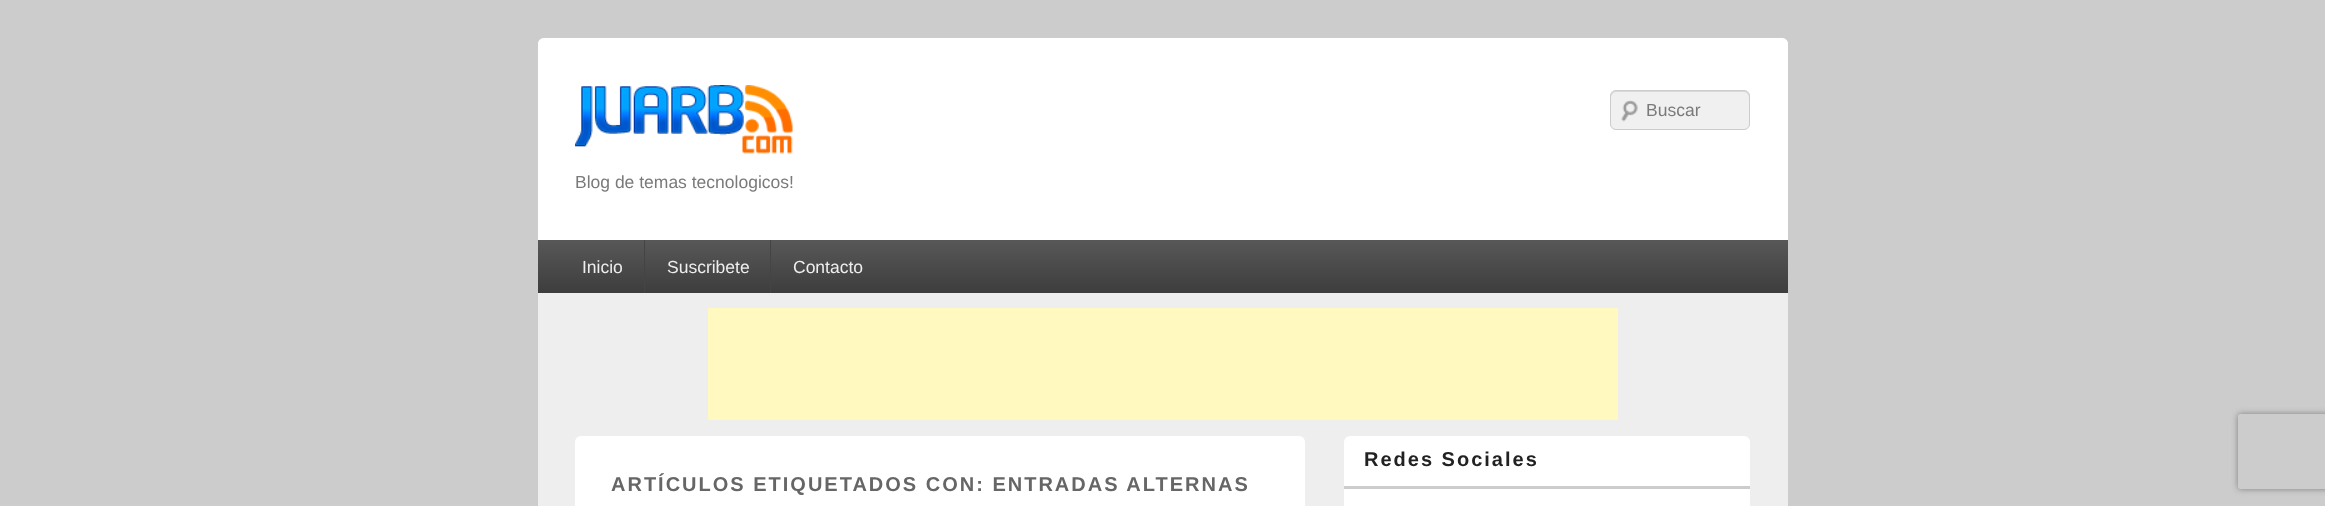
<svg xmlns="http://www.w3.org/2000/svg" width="2325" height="506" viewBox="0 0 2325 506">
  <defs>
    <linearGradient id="g1" gradientUnits="userSpaceOnUse" x1="1163" y1="240" x2="1163" y2="293"><stop offset="0" stop-color="#585858"/><stop offset="1" stop-color="#3d3d3d"/></linearGradient>
    <clipPath id="clip1"><path d="M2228 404H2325V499H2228ZM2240.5 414H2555.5C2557 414 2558 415 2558 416.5V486.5C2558 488 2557 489 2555.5 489H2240.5C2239 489 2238 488 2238 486.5V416.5C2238 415 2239 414 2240.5 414Z" clip-rule="evenodd"/></clipPath>
  </defs>
  <rect width="100%" height="100%" fill="#ccc"/>
  <rect x="538" y="38" width="1250" height="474" rx="6" fill="#eee"/>
  <rect x="538" y="38" width="1250" height="215" rx="6" fill="#fff"/>
  <rect x="1610" y="90" width="140" height="40" rx="6" fill="#f0f0f0"/>
  <image x="1621" y="100" width="17" height="22" href="img/1.png"/>
  <path d="M1616 92H1744C1747 92 1749 95 1749 98V96C1749 93 1747 91 1744 91H1616C1613 91 1611 93 1611 96V98C1611 95 1613 92 1616 92Z" fill="#d8d8d8"/>
  <rect x="1610.5" y="90.5" width="139" height="39" rx="5.5" fill="none" stroke="#ccc"/>
  <image x="575" y="85" width="218" height="69" href="img/2.png"/>
  <path d="M538 240h1250v53H538z" fill="url(#g1)"/>
  <path d="M644 240h1v53H644z" fill="#444"/>
  <path d="M770 240h1v53H770z" fill="#444"/>
  <path d="M708 308h910v112H708z" fill="#fff9c0"/>
  <rect x="1344" y="436" width="406" height="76" rx="6" fill="#fff"/>
  <path d="M1344 486h406v3H1344z" fill="#ccc"/>
  <rect x="575" y="436" width="730" height="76" rx="6" fill="#fff"/>
  <g clip-path="url(#clip1)">
    <rect x="2238" y="414" width="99" height="75" rx="2.5" fill="#808080" filter="blur(3px)"/>
  </g>
  <g font-family="Liberation Sans" font-size="17.5" fill="#7a7a7a">
    <text x="1646" y="116">Buscar</text>
    <text x="575" y="188">Blog de temas tecnologicos!</text>
  </g>
  <g font-family="Liberation Sans" font-size="17.5" fill="#eee">
    <text x="582" y="273">Inicio</text>
    <text x="667" y="273">Suscribete</text>
    <text x="793" y="273">Contacto</text>
  </g>
  <text x="1364" y="466" font-family="Liberation Sans" font-size="20" font-weight="bold" letter-spacing="2" fill="#222">Redes Sociales</text>
  <text x="611" y="491" font-family="Liberation Sans" font-size="20" font-weight="bold" letter-spacing="2" fill="#666">ARTÍCULOS ETIQUETADOS CON: ENTRADAS ALTERNAS</text>
</svg>
